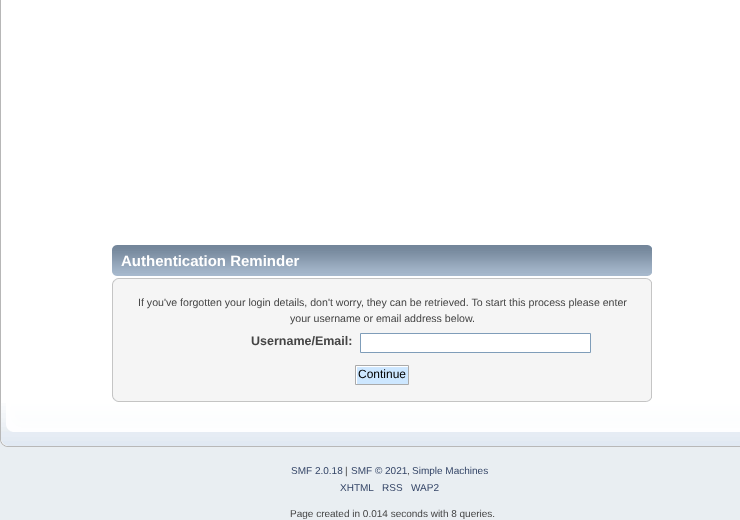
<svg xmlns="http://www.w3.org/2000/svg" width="740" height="520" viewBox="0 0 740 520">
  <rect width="100%" height="100%" fill="#e9eef2"/>
  <path d="M1 0h739v403H1z" fill="#fff"/>
  <path d="M0 0h1v403H0z" fill="#b7b7b7"/>
  <image x="112" y="245" width="535" height="31" href="img/1.png"/>
  <image x="647" y="245" width="5" height="31" href="img/2.png"/>
  <image x="112" y="278" width="534" height="11" href="img/3.png"/>
  <image x="646" y="278" width="6" height="11" href="img/4.png"/>
  <path d="M113 289h538v102H113z" fill="#f5f5f5"/>
  <path d="M651 289h1v102H651z" fill="#c5c5c5"/>
  <path d="M112 289h1v102H112z" fill="#c5c5c5"/>
  <path d="M360.5 333.5h230v19H360.5z" fill="#fff" stroke="#7f9db9"/>
  <image x="356" y="366" width="52" height="18" href="img/5.png"/>
  <path d="M355.5 365.5h53v19H355.5z" fill="none" stroke="#aaa"/>
  <image x="112" y="391" width="534" height="11" href="img/6.png"/>
  <image x="646" y="391" width="6" height="11" href="img/7.png"/>
  <image x="0" y="403" width="740" height="44" href="img/8.png"/>
  <text x="121" y="266" font-family="Liberation Sans" font-size="15" font-weight="bold" fill="#fff">Authentication Reminder</text>
  <g font-family="Liberation Sans" font-size="10.6" fill="#444">
    <text x="138" y="306">If you've forgotten your login details, don't worry, they can be retrieved. To start this process please enter</text>
    <text x="290" y="322">your username or email address below.</text>
  </g>
  <text x="251" y="345" font-family="Liberation Sans" font-size="12.5" font-weight="bold" fill="#444">Username/Email:</text>
  <text x="358" y="378" font-family="Liberation Sans" font-size="12" fill="#000">Continue</text>
  <text x="291" y="474" font-family="Liberation Sans" font-size="10" fill="#346">SMF 2.0.18</text>
  <text x="345" y="474" font-family="Liberation Sans" font-size="10" fill="#444">|</text>
  <text x="351" y="474" font-family="Liberation Sans" font-size="10" fill="#346">SMF © 2021</text>
  <text x="407" y="474" font-family="Liberation Sans" font-size="10" fill="#444">,</text>
  <g font-family="Liberation Sans" font-size="10" fill="#346">
    <text x="412" y="474">Simple Machines</text>
    <text x="340" y="491">XHTML</text>
    <text x="382" y="491">RSS</text>
    <text x="411" y="491">WAP2</text>
  </g>
  <text x="290" y="517" font-family="Liberation Sans" font-size="10" fill="#444">Page created in 0.014 seconds with 8 queries.</text>
</svg>
